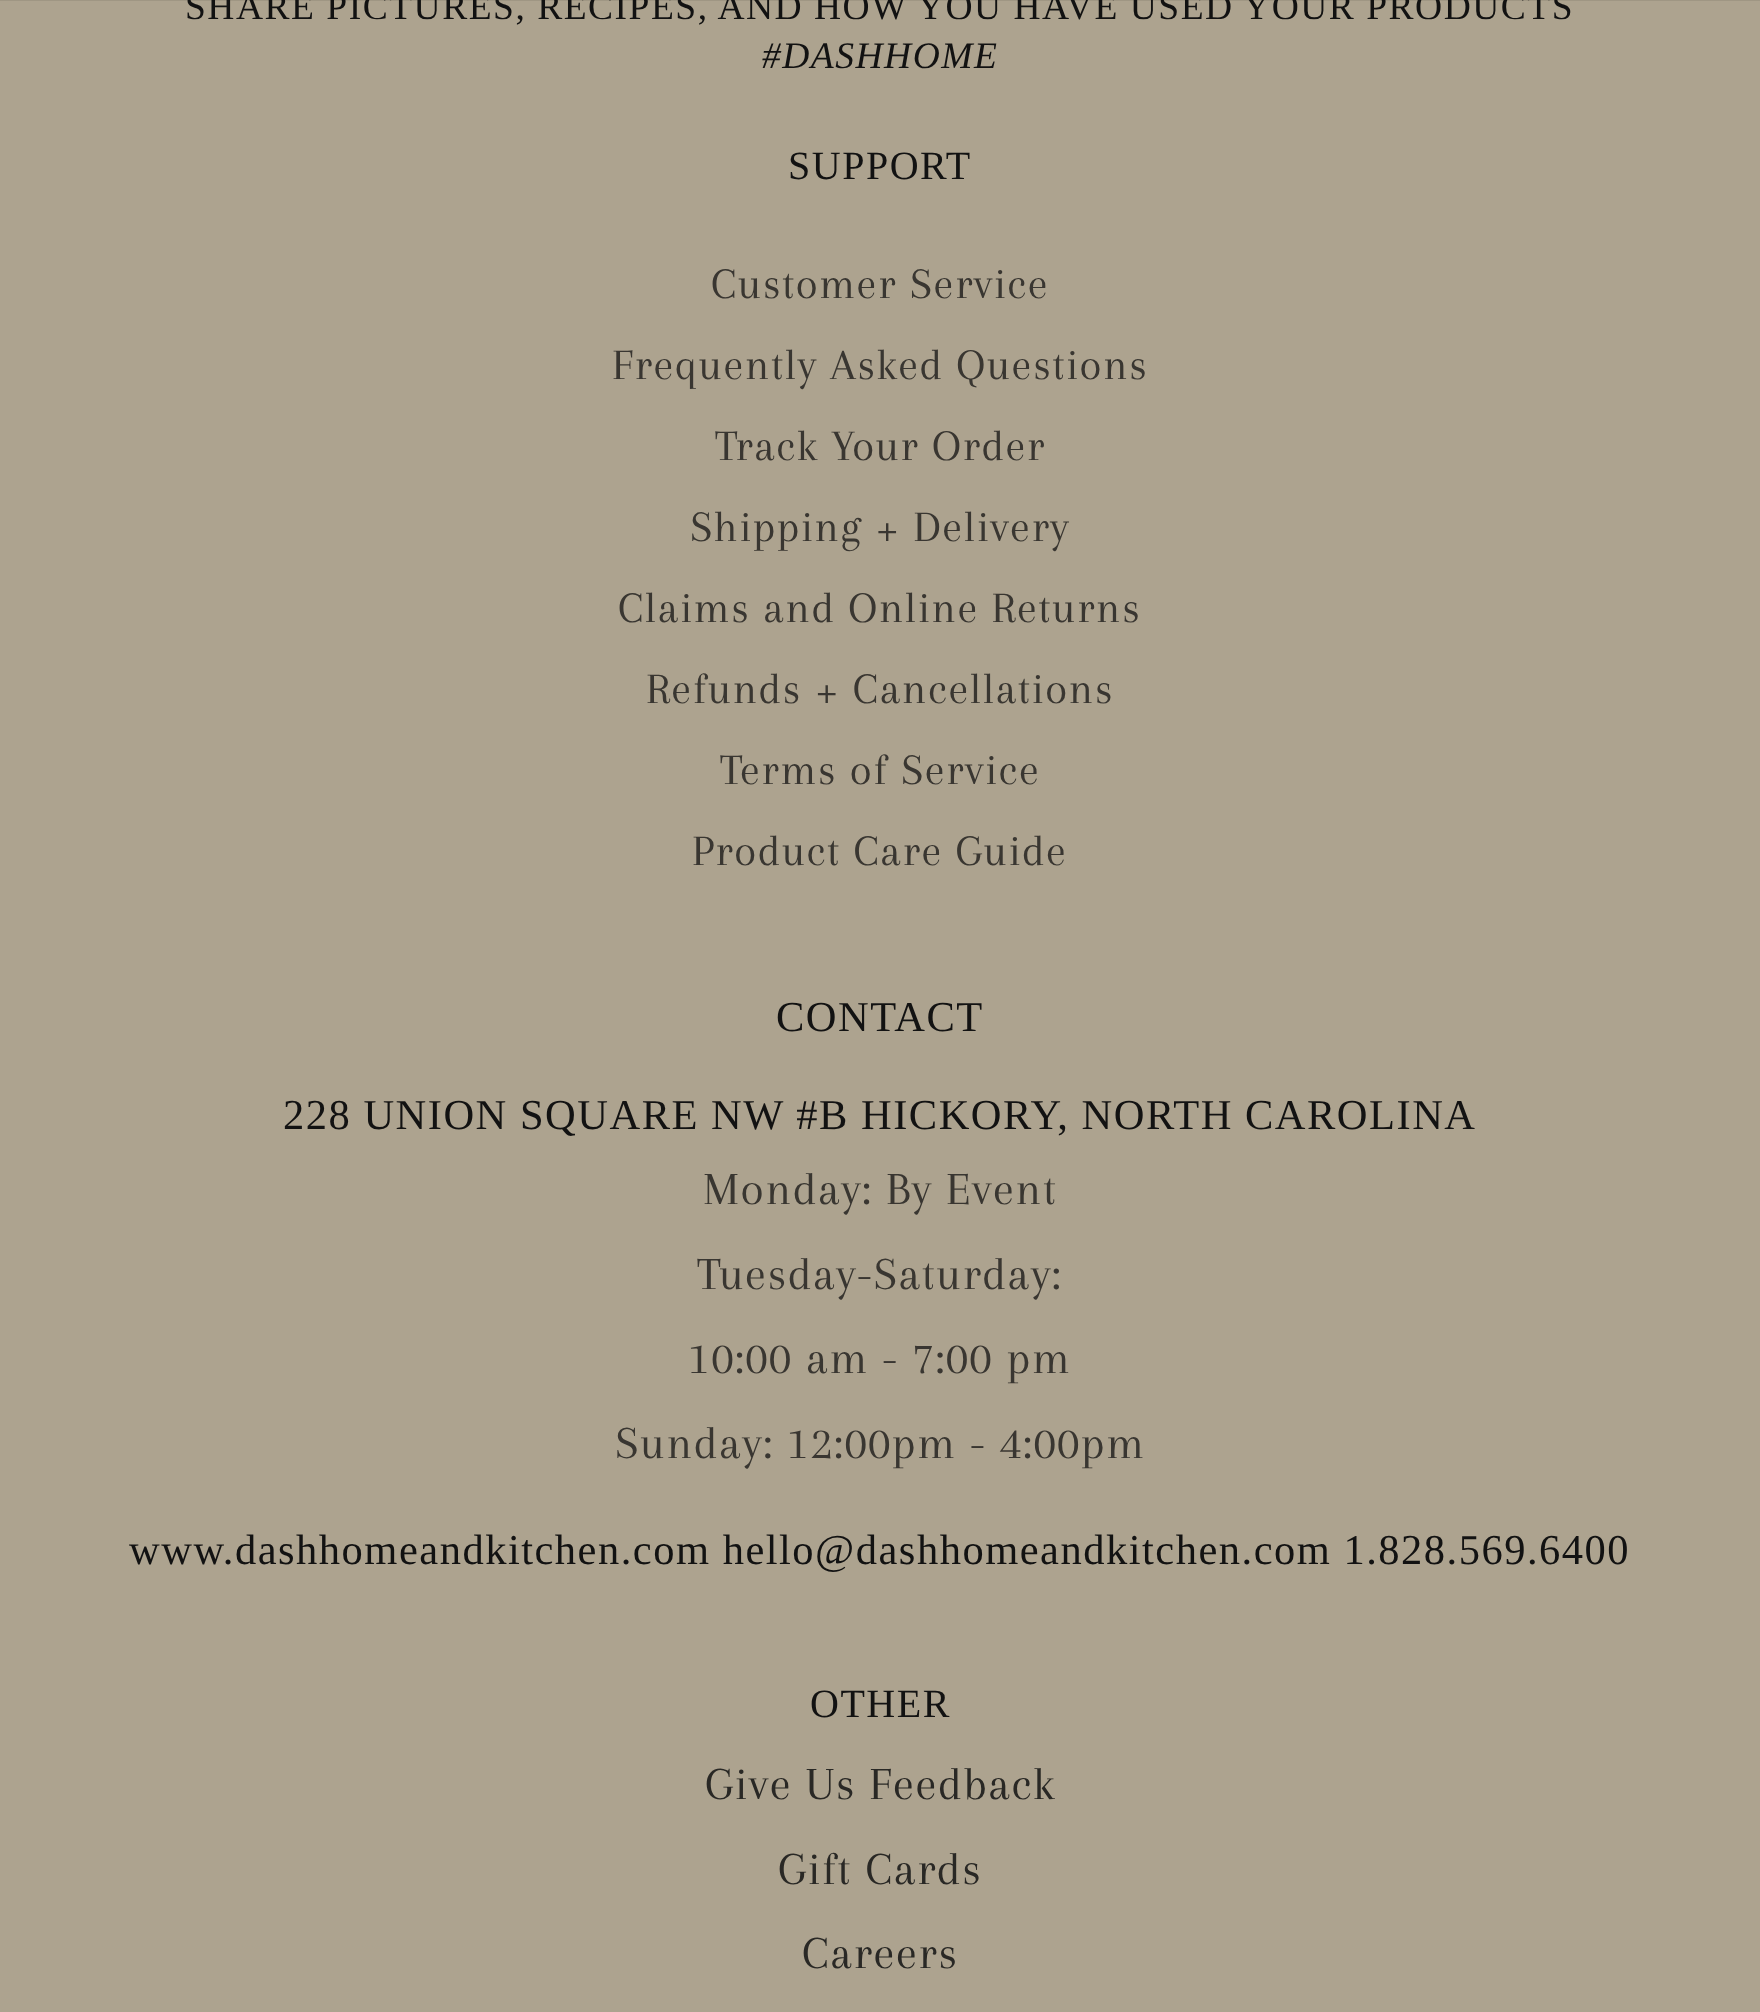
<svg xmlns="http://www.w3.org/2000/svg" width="1760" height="2012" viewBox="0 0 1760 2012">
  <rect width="100%" height="100%" fill="#ada38f"/>
  <path d="M0 0h1760v1H0z" fill="#00000014"/>
  <text x="185" y="19" font-family="Liberation Serif" font-size="37.5" letter-spacing="1.5" fill="#121212">SHARE PICTURES, RECIPES, AND HOW YOU HAVE USED YOUR PRODUCTS</text>
  <text x="762" y="68" font-family="Liberation Serif" font-size="37.5" font-style="italic" letter-spacing="1.5" fill="#121212">#DASHHOME</text>
  <text x="788" y="179" font-family="Liberation Serif" font-size="40" letter-spacing="1.5" fill="#121212">SUPPORT</text>
  <g font-family="Arapey" font-size="45" letter-spacing="1.5" fill="#393631">
    <text x="711" y="298">Customer Service</text>
    <text x="612" y="379">Frequently Asked Questions</text>
    <text x="715" y="460">Track Your Order</text>
    <text x="690" y="541">Shipping + Delivery</text>
    <text x="618" y="622">Claims and Online Returns</text>
    <text x="646" y="703">Refunds + Cancellations</text>
    <text x="720" y="784">Terms of Service</text>
    <text x="692" y="865">Product Care Guide</text>
  </g>
  <g font-family="Liberation Serif" font-size="42.5" letter-spacing="1.5" fill="#121212">
    <text x="776" y="1031">CONTACT</text>
    <text x="283" y="1129">228 UNION SQUARE NW #B HICKORY, NORTH CAROLINA</text>
  </g>
  <g font-family="Arapey" font-size="47.5" letter-spacing="1.5" fill="#393631">
    <text x="703" y="1204">Monday: By Event</text>
    <text x="697" y="1289">Tuesday-Saturday:</text>
    <text x="688" y="1373">10:00 am - 7:00 pm</text>
    <text x="615" y="1458">Sunday: 12:00pm - 4:00pm</text>
  </g>
  <text x="129" y="1564" font-family="Liberation Serif" font-size="42.5" letter-spacing="1.5" fill="#121212">www.dashhomeandkitchen.com hello@dashhomeandkitchen.com 1.828.569.6400</text>
  <text x="810" y="1717" font-family="Liberation Serif" font-size="40" letter-spacing="1.5" fill="#121212">OTHER</text>
  <g font-family="Arapey" font-size="47.5" letter-spacing="1.5" fill="#292825">
    <text x="705" y="1799">Give Us Feedback</text>
    <text x="778" y="1884">Gift Cards</text>
    <text x="802" y="1968">Careers</text>
  </g>
</svg>
